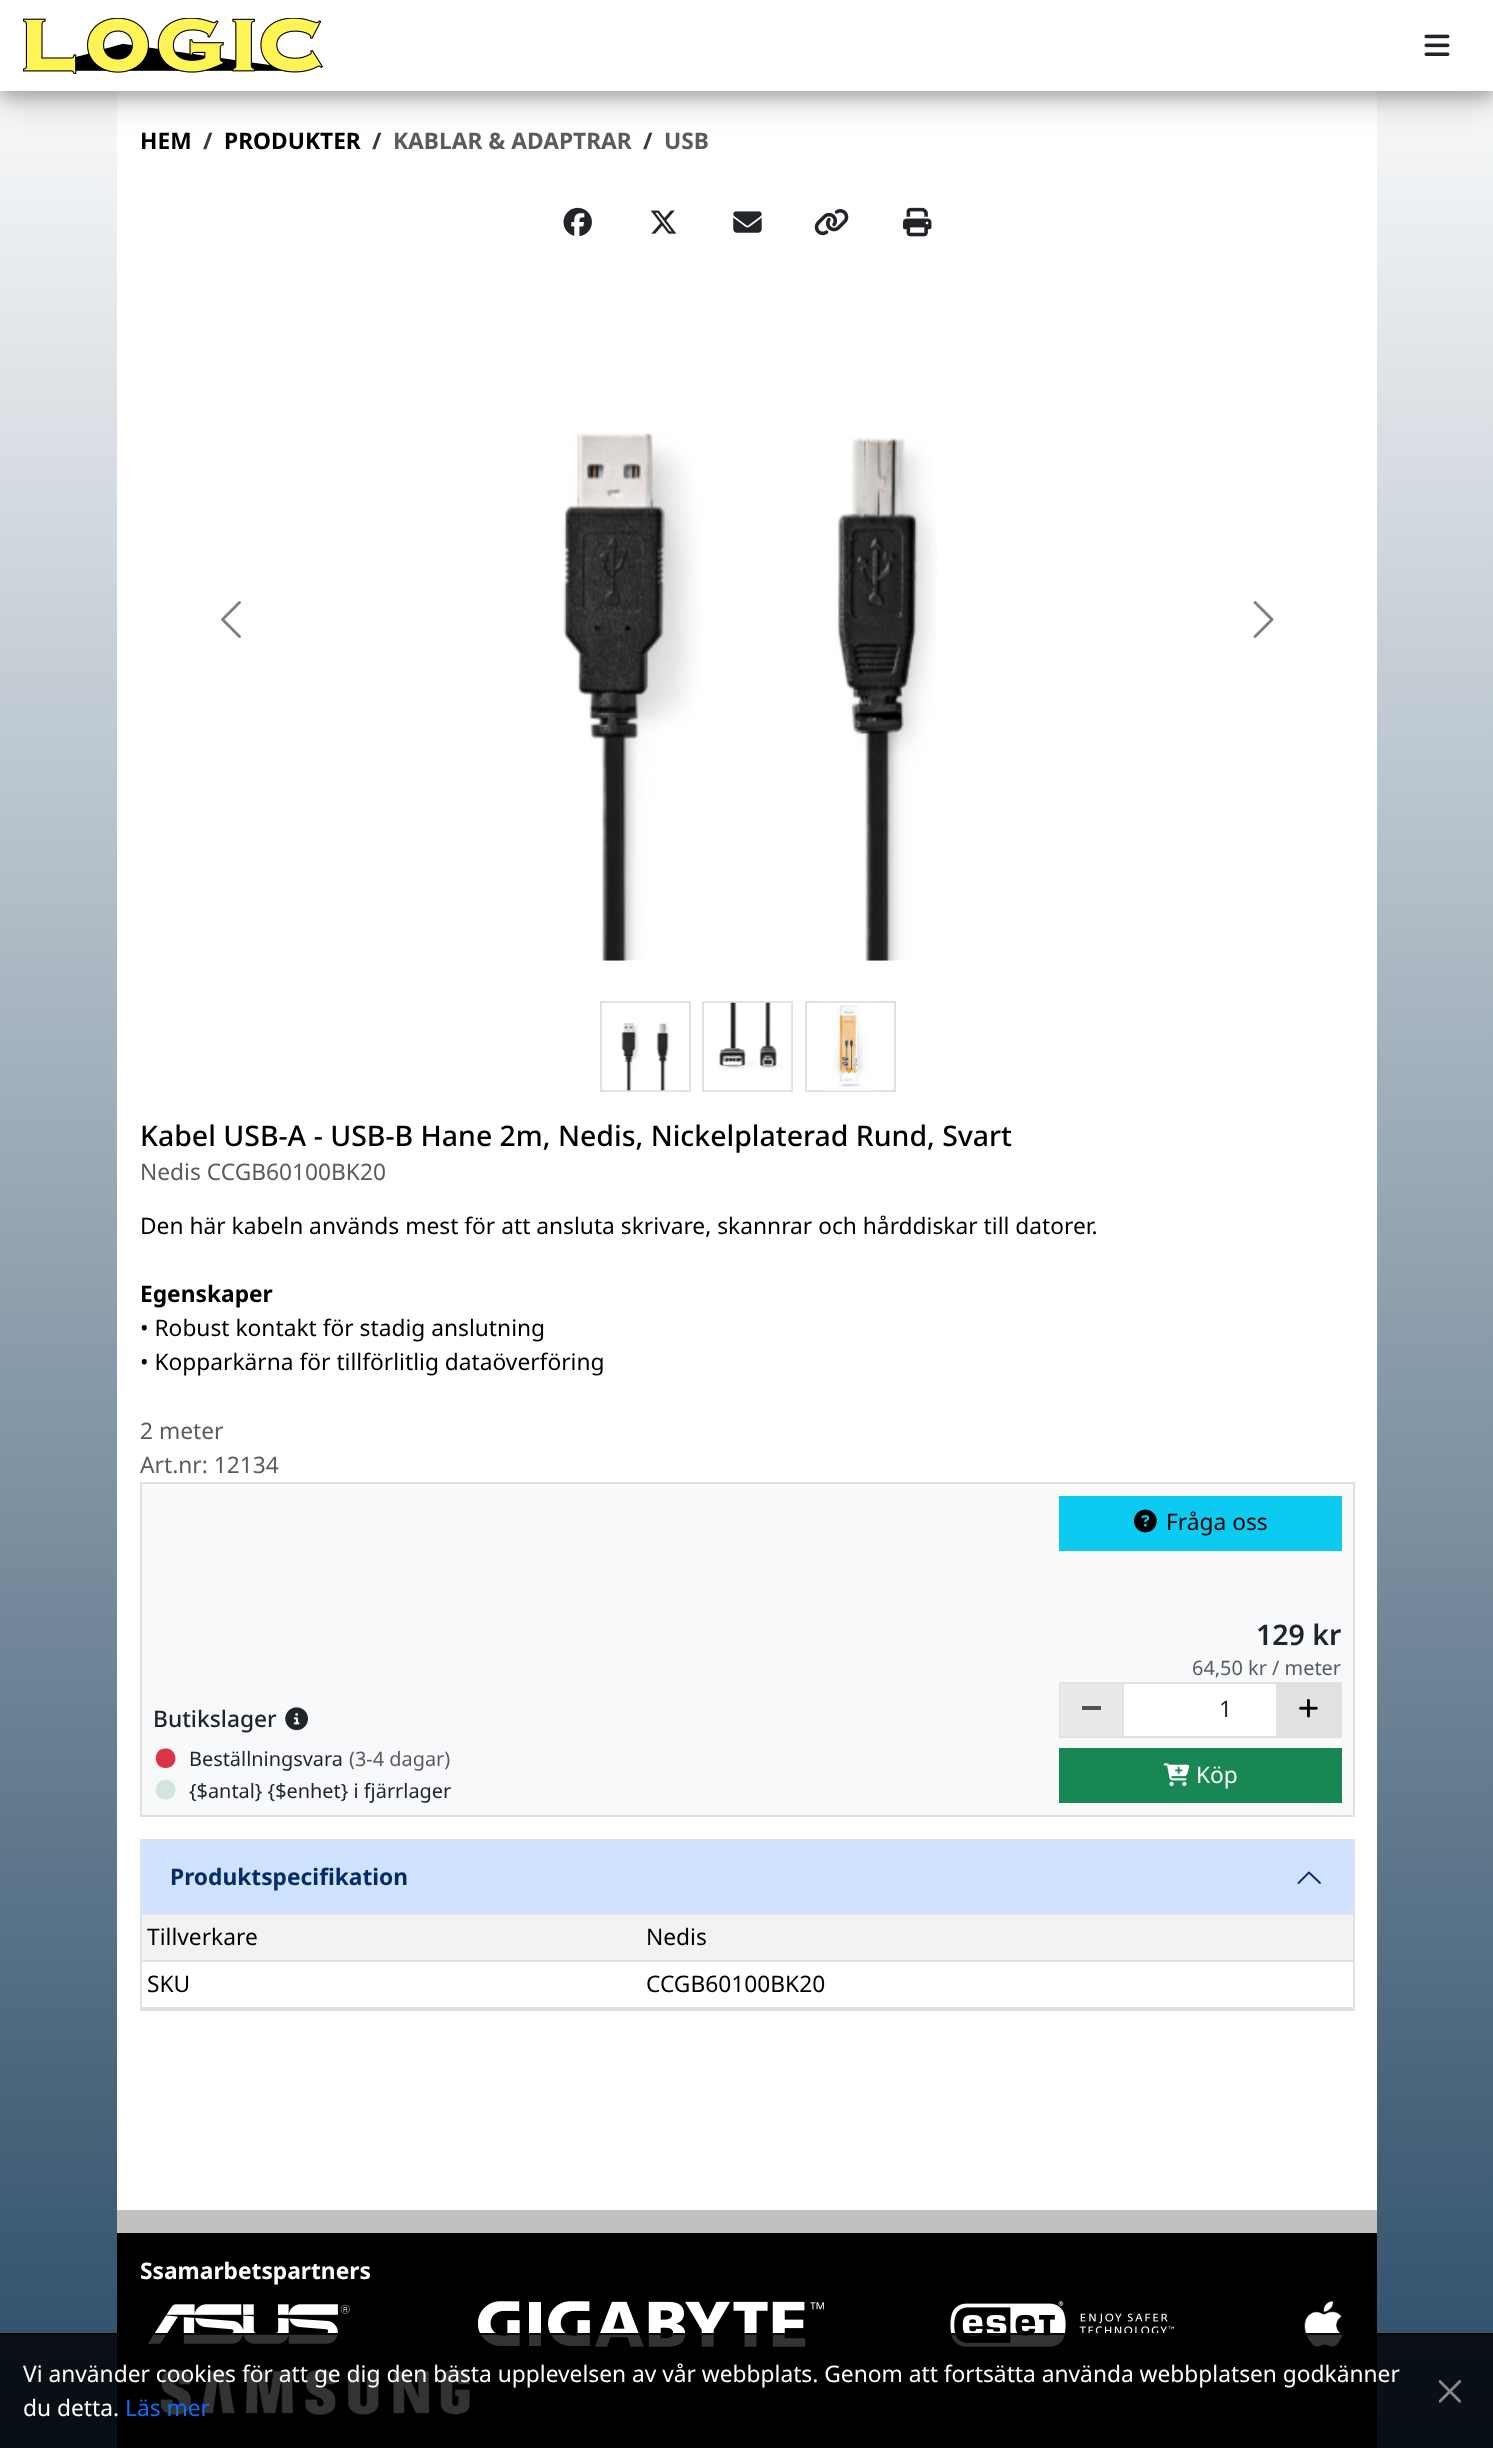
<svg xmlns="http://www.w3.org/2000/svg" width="1493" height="2448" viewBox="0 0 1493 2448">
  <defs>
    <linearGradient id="g1" gradientUnits="userSpaceOnUse" x1="747" y1="0" x2="747" y2="2448"><stop offset="0" stop-color="#fff"/><stop offset="1" stop-color="#2a4b66"/></linearGradient>
  </defs>
  <rect width="100%" height="100%" fill="#fff"/>
  <path d="M0 91h1493v2357H0z" fill="url(#g1)"/>
  <path d="M117 91h1260v2119H117z" fill="#fff"/>
  <path d="M0 11h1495v91H0z" fill="#00000030" filter="blur(17.5px)"/>
  <path d="M0 7h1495v91H0z" fill="#00000033" filter="blur(7px)"/>
  <path d="M0 0h1493v91H0z" fill="#fff"/>
  <image x="23" y="18" width="301" height="56" href="img/1.png"/>
  <image x="1424" y="34" width="26" height="22" href="img/2.png"/>
  <image x="563" y="207" width="29" height="30" href="img/3.png"/>
  <image x="650" y="210" width="27" height="24" href="img/4.png"/>
  <image x="733" y="211" width="29" height="22" href="img/5.png"/>
  <image x="814" y="209" width="35" height="27" href="img/6.png"/>
  <image x="903" y="207" width="29" height="30" href="img/7.png"/>
  <image x="221" y="601" width="20" height="37" href="img/8.png"/>
  <image x="563" y="433" width="374" height="528" href="img/9.png"/>
  <image x="1253" y="601" width="21" height="37" href="img/10.png"/>
  <path d="M601 1002h89v89H601z" fill="none" stroke="#dee2e6" stroke-width="2"/>
  <image x="607" y="1002" width="77" height="89" href="img/11.png"/>
  <path d="M703 1002h89v89H703z" fill="none" stroke="#dee2e6" stroke-width="2"/>
  <image x="705" y="1002" width="87" height="89" href="img/12.png"/>
  <path d="M806 1002h89v89H806z" fill="none" stroke="#dee2e6" stroke-width="2"/>
  <image x="822" y="1002" width="55" height="89" href="img/13.png"/>
  <path d="M141 1483h1213v333H141z" fill="#f8f9fa" stroke="#dfe0e1" stroke-width="2"/>
  <image x="285" y="1707" width="23" height="24" href="img/14.png"/>
  <path d="M165.5 1768C179 1768 178.5 1748.5 165.5 1748.5C152.5 1748.5 152.5 1768 165.5 1768Z" fill="#dc3545"/>
  <path d="M165.5 1799.5C179 1799.5 178.5 1780 165.5 1780C152.5 1780 152.5 1799.5 165.5 1799.5Z" fill="#d1e7dd"/>
  <path d="M1059 1496h283v55H1059z" fill="#0dcaf0"/>
  <image x="1134" y="1509" width="23" height="24" href="img/15.png"/>
  <path d="M1059 1682h63v56H1059z" fill="#dfe1e2a6"/>
  <path d="M1123 1683h154v54H1123z" fill="#fff" stroke="#dee2e6" stroke-width="2"/>
  <path d="M1060 1683h63v54H1060z" fill="none" stroke="#dfe1e2a6" stroke-width="2"/>
  <path d="M1082 1706h19v4H1082z" fill="#515252"/>
  <path d="M1276 1682h66v56H1276z" fill="#dfe1e2"/>
  <image x="1299" y="1699" width="19" height="19" href="img/16.png"/>
  <path d="M1059 1748h283v55H1059z" fill="#198754"/>
  <image x="1163" y="1763" width="27" height="24" href="img/17.png"/>
  <path d="M141 1840h1213v170H141z" fill="none" stroke="#dee2e6" stroke-width="2"/>
  <path d="M142 1841h1211v72H142z" fill="#cfe2ff"/>
  <path d="M142 1913h1211v2H142z" fill="#dee2e6"/>
  <path d="M1320 1883L1309 1872.5L1298.5 1883" fill="none" stroke="#052c65" stroke-width="1.8" stroke-linecap="round" stroke-linejoin="round"/>
  <path d="M142 1915h1211v45H142z" fill="#f2f2f2"/>
  <path d="M142 1960h1213v2H142z" fill="#dee2e6"/>
  <path d="M142 2007h1213v2H142z" fill="#dee2e6"/>
  <path d="M117 2210h1260v23H117z" fill="#c0c0c0"/>
  <path d="M117 2233h1260v215H117z" fill="#000"/>
  <image x="147" y="2304" width="203" height="40" href="img/18.png"/>
  <image x="478" y="2301" width="346" height="46" href="img/19.png"/>
  <image x="950" y="2301" width="224" height="46" href="img/20.png"/>
  <image x="1304" y="2301" width="39" height="46" href="img/21.png"/>
  <image x="160" y="2370" width="310" height="45" href="img/22.png"/>
  <path d="M0 2333h1493v115H0z" fill="#000000cc"/>
  <path d="M0 2333h1493v2H0z" fill="#000000cc"/>
  <image x="1439" y="2380" width="22" height="23" href="img/23.png"/>
  <text x="140" y="149" font-family="Noto Sans" font-size="22.75" font-weight="bold" fill="#000">HEM</text>
  <text x="203" y="149" font-family="Noto Sans" font-size="22.75" font-weight="bold" fill="#343a40">/</text>
  <text x="224" y="149" font-family="Noto Sans" font-size="22.75" font-weight="bold" fill="#000">PRODUKTER</text>
  <text x="372" y="149" font-family="Noto Sans" font-size="22.75" font-weight="bold" fill="#343a40">/</text>
  <text x="393" y="149" font-family="Noto Sans" font-size="22.75" font-weight="bold" fill="#595c5f">KABLAR &amp; ADAPTRAR</text>
  <text x="643" y="149" font-family="Noto Sans" font-size="22.75" font-weight="bold" fill="#343a40">/</text>
  <text x="664" y="149" font-family="Noto Sans" font-size="22.75" font-weight="bold" fill="#595c5f">USB</text>
  <text x="140" y="1146" font-family="Noto Sans" font-size="28.45" font-weight="500" fill="#000">Kabel USB-A - USB-B Hane 2m, Nedis, Nickelplaterad Rund, Svart</text>
  <text x="140" y="1180" font-family="Noto Sans" font-size="22.75" fill="#595c5f">Nedis CCGB60100BK20</text>
  <text x="140" y="1234" font-family="Noto Sans" font-size="22.75" fill="#000">Den här kabeln används mest för att ansluta skrivare, skannrar och hårddiskar till datorer.</text>
  <text x="140" y="1302" font-family="Noto Sans" font-size="22.75" font-weight="bold" fill="#000">Egenskaper</text>
  <g font-family="Noto Sans" font-size="22.75" fill="#000">
    <text x="140" y="1336">• Robust kontakt för stadig anslutning</text>
    <text x="140" y="1370">• Kopparkärna för tillförlitlig dataöverföring</text>
  </g>
  <g font-family="Noto Sans" font-size="22.75" fill="#595c5f">
    <text x="140" y="1439">2 meter</text>
    <text x="140" y="1473">Art.nr: 12134</text>
  </g>
  <text x="153" y="1727" font-family="Noto Sans" font-size="22.75" font-weight="500" fill="#212529">Butikslager</text>
  <text x="189" y="1766" font-family="Noto Sans" font-size="19.9" fill="#212529">Beställningsvara</text>
  <text x="349" y="1766" font-family="Noto Sans" font-size="19.9" fill="#595c5f">(3-4 dagar)</text>
  <text x="189" y="1798" font-family="Noto Sans" font-size="19.9" fill="#212529">{$antal} {$enhet} i fjärrlager</text>
  <text x="1166" y="1530" font-family="Noto Sans" font-size="22.75" fill="#000">Fråga oss</text>
  <text x="1256" y="1645" font-family="Noto Sans" font-size="28.45" font-weight="600" fill="#212529">129 kr</text>
  <text x="1192" y="1675" font-family="Noto Sans" font-size="19.9" fill="#595c5f">64,50 kr / meter</text>
  <text x="1219" y="1717" font-family="Noto Sans" font-size="22.75" fill="#212529">1</text>
  <text x="1196" y="1783" font-family="Noto Sans" font-size="22.75" fill="#fff">Köp</text>
  <text x="170" y="1885" font-family="Noto Sans" font-size="22.75" font-weight="bold" fill="#052c65">Produktspecifikation</text>
  <g font-family="Noto Sans" font-size="22.75" fill="#000">
    <text x="147" y="1945">Tillverkare</text>
    <text x="646" y="1945">Nedis</text>
    <text x="147" y="1992">SKU</text>
    <text x="646" y="1992">CCGB60100BK20</text>
  </g>
  <text x="140" y="2279" font-family="Noto Sans" font-size="22.75" font-weight="bold" fill="#fff">Ssamarbetspartners</text>
  <g font-family="Noto Sans" font-size="22.75" fill="#fff">
    <text x="23" y="2382">Vi använder cookies för att ge dig den bästa upplevelsen av vår webbplats. Genom att fortsätta använda webbplatsen godkänner</text>
    <text x="23" y="2416">du detta.</text>
  </g>
  <text x="125" y="2416" font-family="Noto Sans" font-size="22.75" fill="#0d6efd">Läs mer</text>
</svg>
